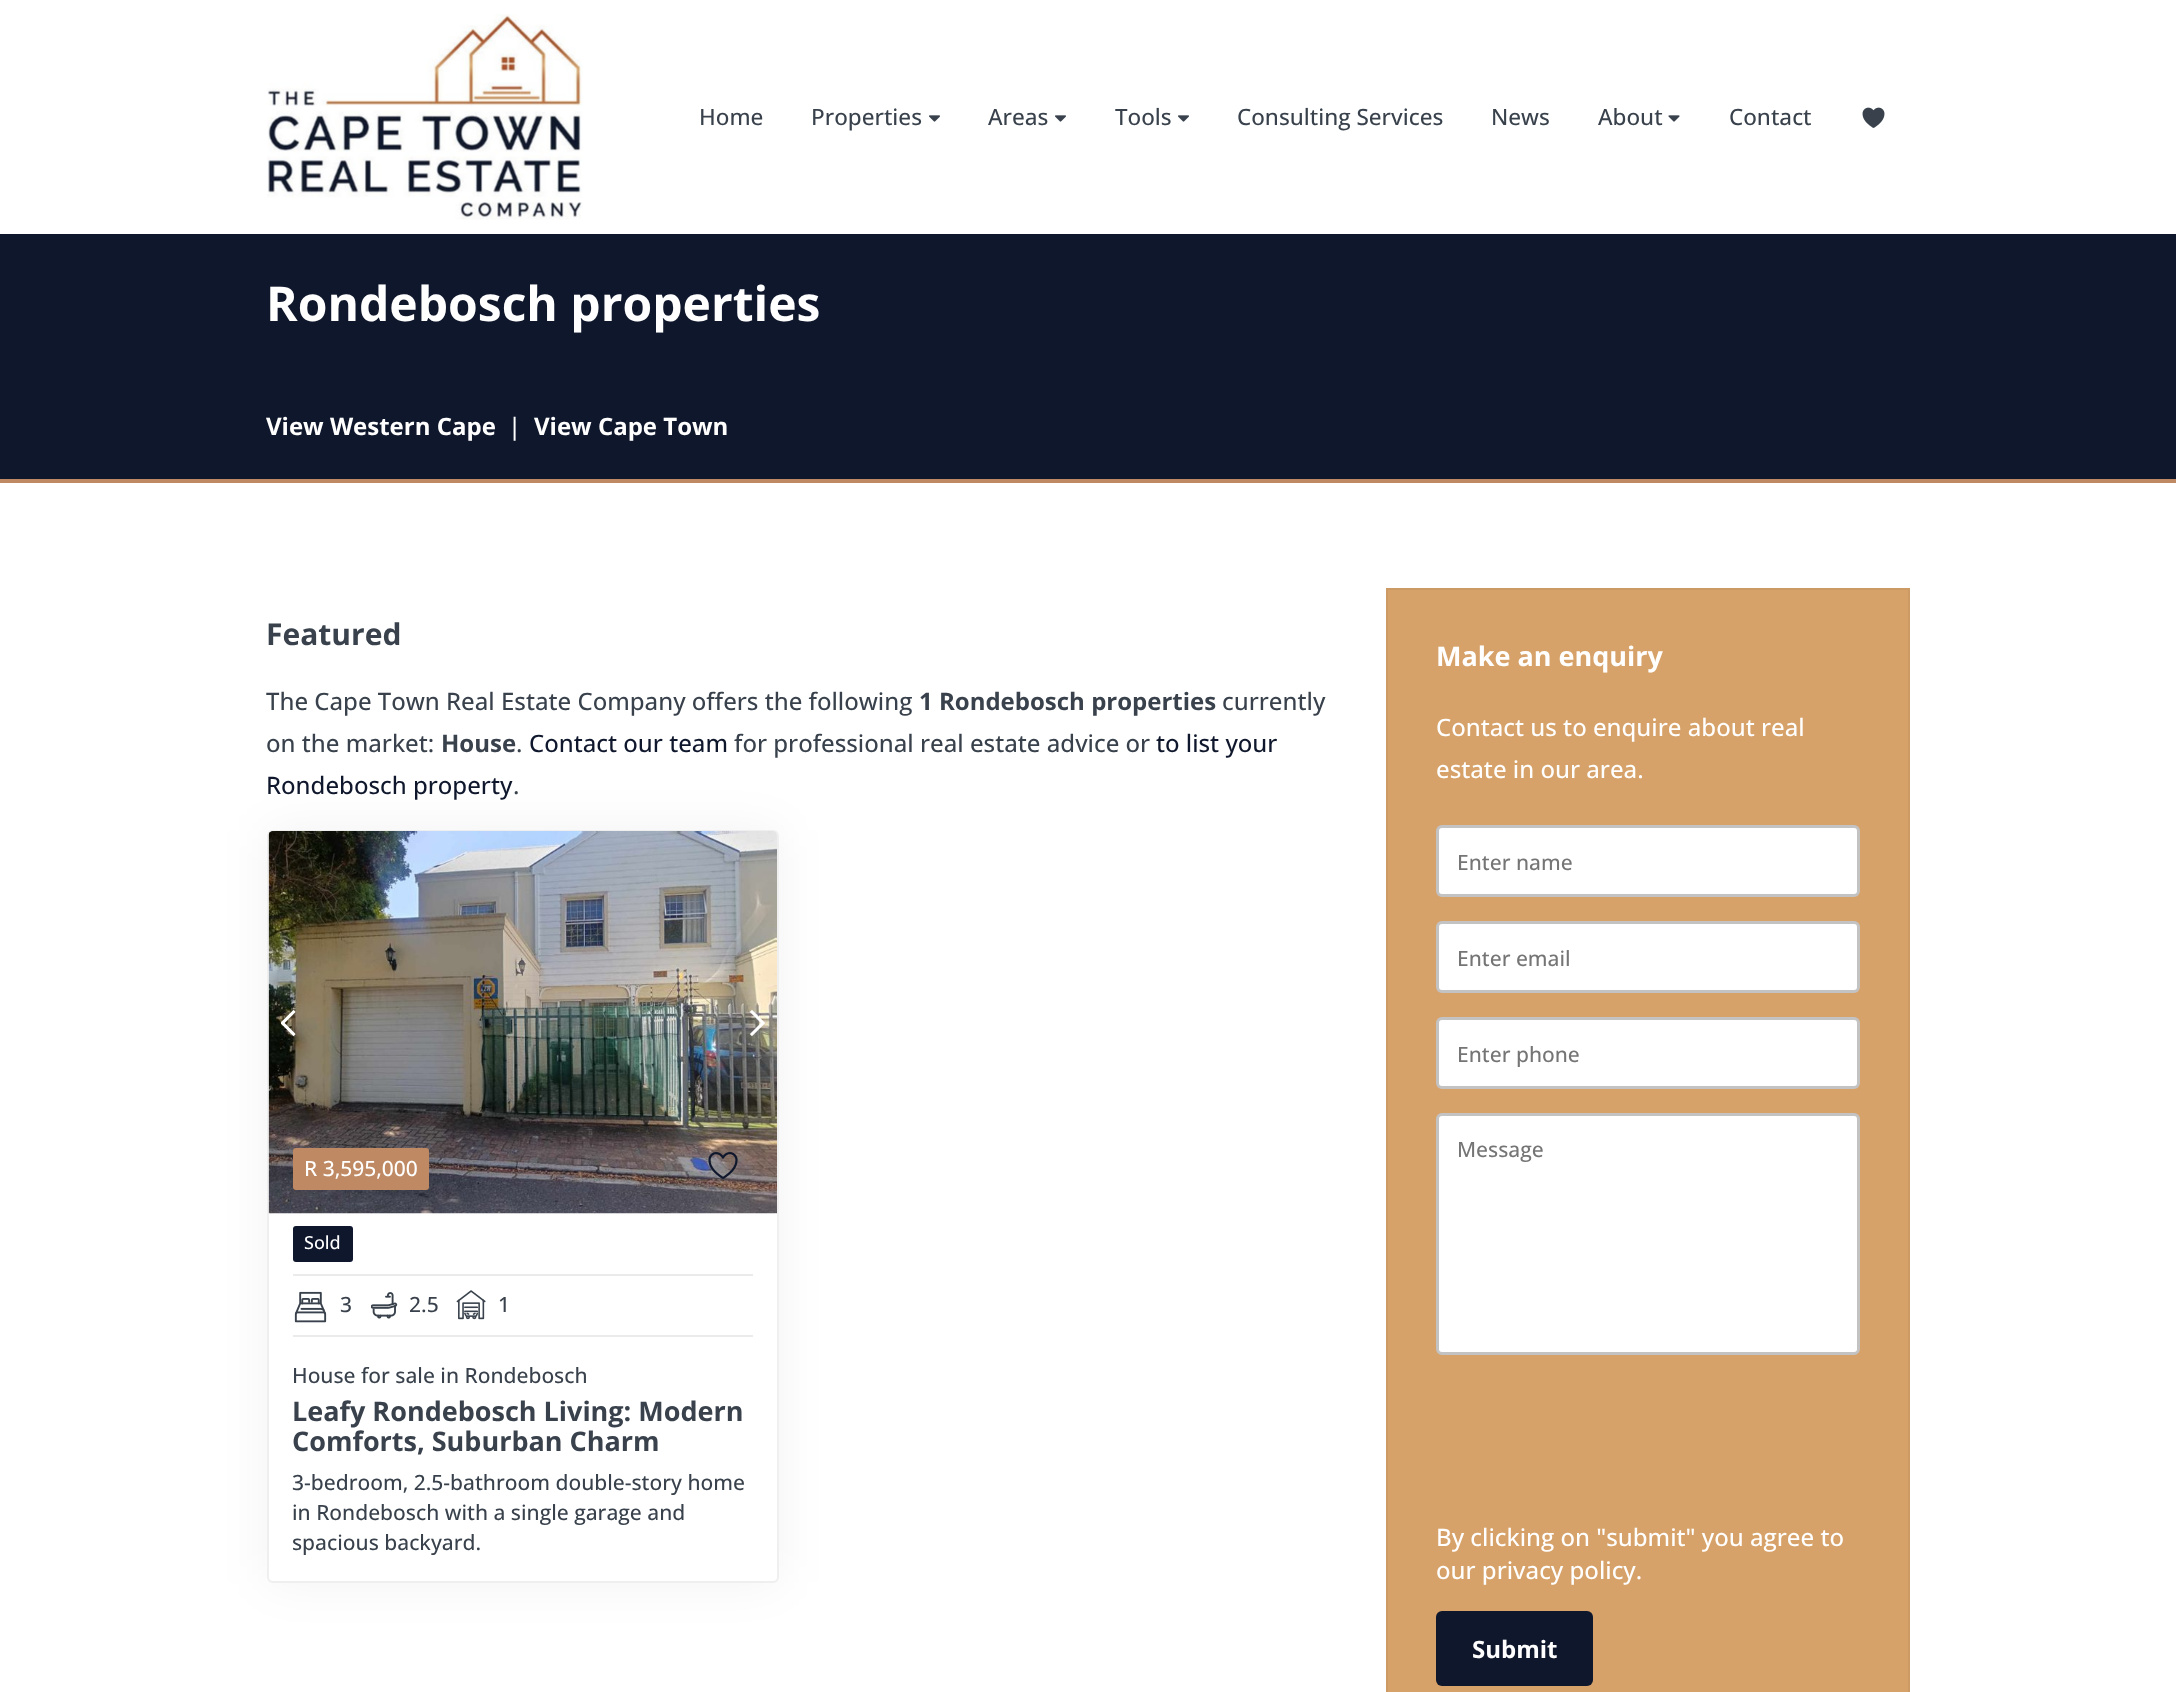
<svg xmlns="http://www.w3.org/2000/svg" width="2176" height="1692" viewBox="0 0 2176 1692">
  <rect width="100%" height="100%" fill="#0f172c"/>
  <path d="M0 0h2176v234H0z" fill="#fff"/>
  <image x="267" y="14" width="316" height="206" href="img/1.png"/>
  <image x="929" y="115" width="11" height="7" href="img/2.png"/>
  <image x="1055" y="115" width="11" height="7" href="img/2.png"/>
  <image x="1178" y="115" width="11" height="7" href="img/2.png"/>
  <image x="1668" y="115" width="12" height="7" href="img/3.png"/>
  <image x="1862" y="107" width="23" height="21" href="img/4.png"/>
  <path d="M0 479h2176v4H0z" fill="#bf8963"/>
  <path d="M0 483h2176v1209H0z" fill="#fff"/>
  <rect x="267" y="830" width="512" height="753" rx="6" fill="#0000000d" filter="blur(24px)"/>
  <rect x="268" y="831" width="510" height="751" rx="5" fill="#fff" stroke="#efefef" stroke-width="2"/>
  <image x="268" y="831" width="509" height="383" href="img/5.png"/>
  <image x="281" y="1010" width="15" height="26" href="img/6.png"/>
  <image x="750" y="1010" width="15" height="26" href="img/7.png"/>
  <rect x="293" y="1148" width="136" height="42" rx="3" fill="#bf8963"/>
  <image x="708" y="1152" width="30" height="27" href="img/8.png"/>
  <rect x="293" y="1226" width="60" height="36" rx="3" fill="#0f172c"/>
  <path d="M293 1274h460v2H293z" fill="#ebebeb"/>
  <path d="M293 1335h460v2H293z" fill="#ebebeb"/>
  <image x="294" y="1291" width="33" height="32" href="img/9.png"/>
  <image x="371" y="1292" width="27" height="27" href="img/10.png"/>
  <image x="456" y="1290" width="30" height="30" href="img/11.png"/>
  <path d="M1387 589h522v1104H1387z" fill="#d7a269" stroke="#cc9a64" stroke-width="2"/>
  <rect x="1437.5" y="826.5" width="421" height="69" rx="4.5" fill="#fff" stroke="#c3c3c4" stroke-width="3"/>
  <rect x="1437.5" y="922.5" width="421" height="69" rx="4.5" fill="#fff" stroke="#c3c3c4" stroke-width="3"/>
  <rect x="1437.5" y="1018.5" width="421" height="69" rx="4.5" fill="#fff" stroke="#c3c3c4" stroke-width="3"/>
  <rect x="1437.5" y="1114.5" width="421" height="239" rx="4.5" fill="#fff" stroke="#c3c3c4" stroke-width="3"/>
  <rect x="1436" y="1611" width="157" height="75" rx="6" fill="#0f172c"/>
  <g font-family="Open Sans" font-size="22.5" font-weight="500" fill="#39424c">
    <text x="699" y="125">Home</text>
    <text x="811" y="125">Properties</text>
    <text x="988" y="125">Areas</text>
    <text x="1115" y="125">Tools</text>
    <text x="1237" y="125">Consulting Services</text>
    <text x="1491" y="125">News</text>
    <text x="1598" y="125">About</text>
    <text x="1729" y="125">Contact</text>
  </g>
  <text x="266" y="321" font-family="Open Sans" font-size="48" font-weight="bold" fill="#fff">Rondebosch properties</text>
  <text x="266" y="435" font-family="Open Sans" font-size="24" font-weight="bold" fill="#fff">View Western Cape</text>
  <text x="508" y="435" font-family="Open Sans" font-size="24" font-weight="500" fill="#fff">|</text>
  <text x="534" y="435" font-family="Open Sans" font-size="24" font-weight="bold" fill="#fff">View Cape Town</text>
  <text x="266" y="645" font-family="Open Sans" font-size="30" font-weight="bold" fill="#39424c">Featured</text>
  <text x="266" y="710" font-family="Open Sans" font-size="24" font-weight="500" fill="#39424c">The Cape Town Real Estate Company offers the following</text>
  <text x="919" y="710" font-family="Open Sans" font-size="24" font-weight="bold" fill="#39424c">1 Rondebosch properties</text>
  <g font-family="Open Sans" font-size="24" font-weight="500" fill="#39424c">
    <text x="1222" y="710">currently</text>
    <text x="266" y="752">on the market:</text>
  </g>
  <text x="441" y="752" font-family="Open Sans" font-size="24" font-weight="bold" fill="#39424c">House</text>
  <text x="516" y="752" font-family="Open Sans" font-size="24" font-weight="500" fill="#39424c">.</text>
  <text x="529" y="752" font-family="Open Sans" font-size="24" font-weight="500" fill="#0f172c">Contact our team</text>
  <text x="734" y="752" font-family="Open Sans" font-size="24" font-weight="500" fill="#39424c">for professional real estate advice or</text>
  <g font-family="Open Sans" font-size="24" font-weight="500" fill="#0f172c">
    <text x="1156" y="752">to list your</text>
    <text x="266" y="794">Rondebosch property</text>
  </g>
  <text x="513" y="794" font-family="Open Sans" font-size="24" font-weight="500" fill="#39424c">.</text>
  <text x="304" y="1176" font-family="Open Sans" font-size="21" font-weight="500" fill="#fff">R 3,595,000</text>
  <text x="304" y="1249" font-family="Open Sans" font-size="18" font-weight="500" fill="#fff">Sold</text>
  <g font-family="Open Sans" font-size="21" font-weight="500" fill="#39424c">
    <text x="340" y="1312">3</text>
    <text x="409" y="1312">2.5</text>
    <text x="498" y="1312">1</text>
    <text x="292" y="1383">House for sale in Rondebosch</text>
  </g>
  <g font-family="Open Sans" font-size="27" font-weight="bold" fill="#39424c">
    <text x="292" y="1421">Leafy Rondebosch Living: Modern</text>
    <text x="292" y="1451">Comforts, Suburban Charm</text>
  </g>
  <g font-family="Open Sans" font-size="21" font-weight="500" fill="#39424c">
    <text x="292" y="1490">3-bedroom, 2.5-bathroom double-story home</text>
    <text x="292" y="1520">in Rondebosch with a single garage and</text>
    <text x="292" y="1550">spacious backyard.</text>
  </g>
  <text x="1436" y="666" font-family="Open Sans" font-size="27" font-weight="bold" fill="#fff">Make an enquiry</text>
  <g font-family="Open Sans" font-size="24" font-weight="500" fill="#fff">
    <text x="1436" y="736">Contact us to enquire about real</text>
    <text x="1436" y="778">estate in our area.</text>
  </g>
  <g font-family="Open Sans" font-size="21" font-weight="500" fill="#757575">
    <text x="1457" y="870">Enter name</text>
    <text x="1457" y="966">Enter email</text>
    <text x="1457" y="1062">Enter phone</text>
    <text x="1457" y="1157">Message</text>
  </g>
  <g font-family="Open Sans" font-size="24" font-weight="500" fill="#fff">
    <text x="1436" y="1546">By clicking on "submit" you agree to</text>
    <text x="1436" y="1579">our privacy policy.</text>
  </g>
  <text x="1472" y="1658" font-family="Open Sans" font-size="24" font-weight="bold" fill="#fff">Submit</text>
</svg>
